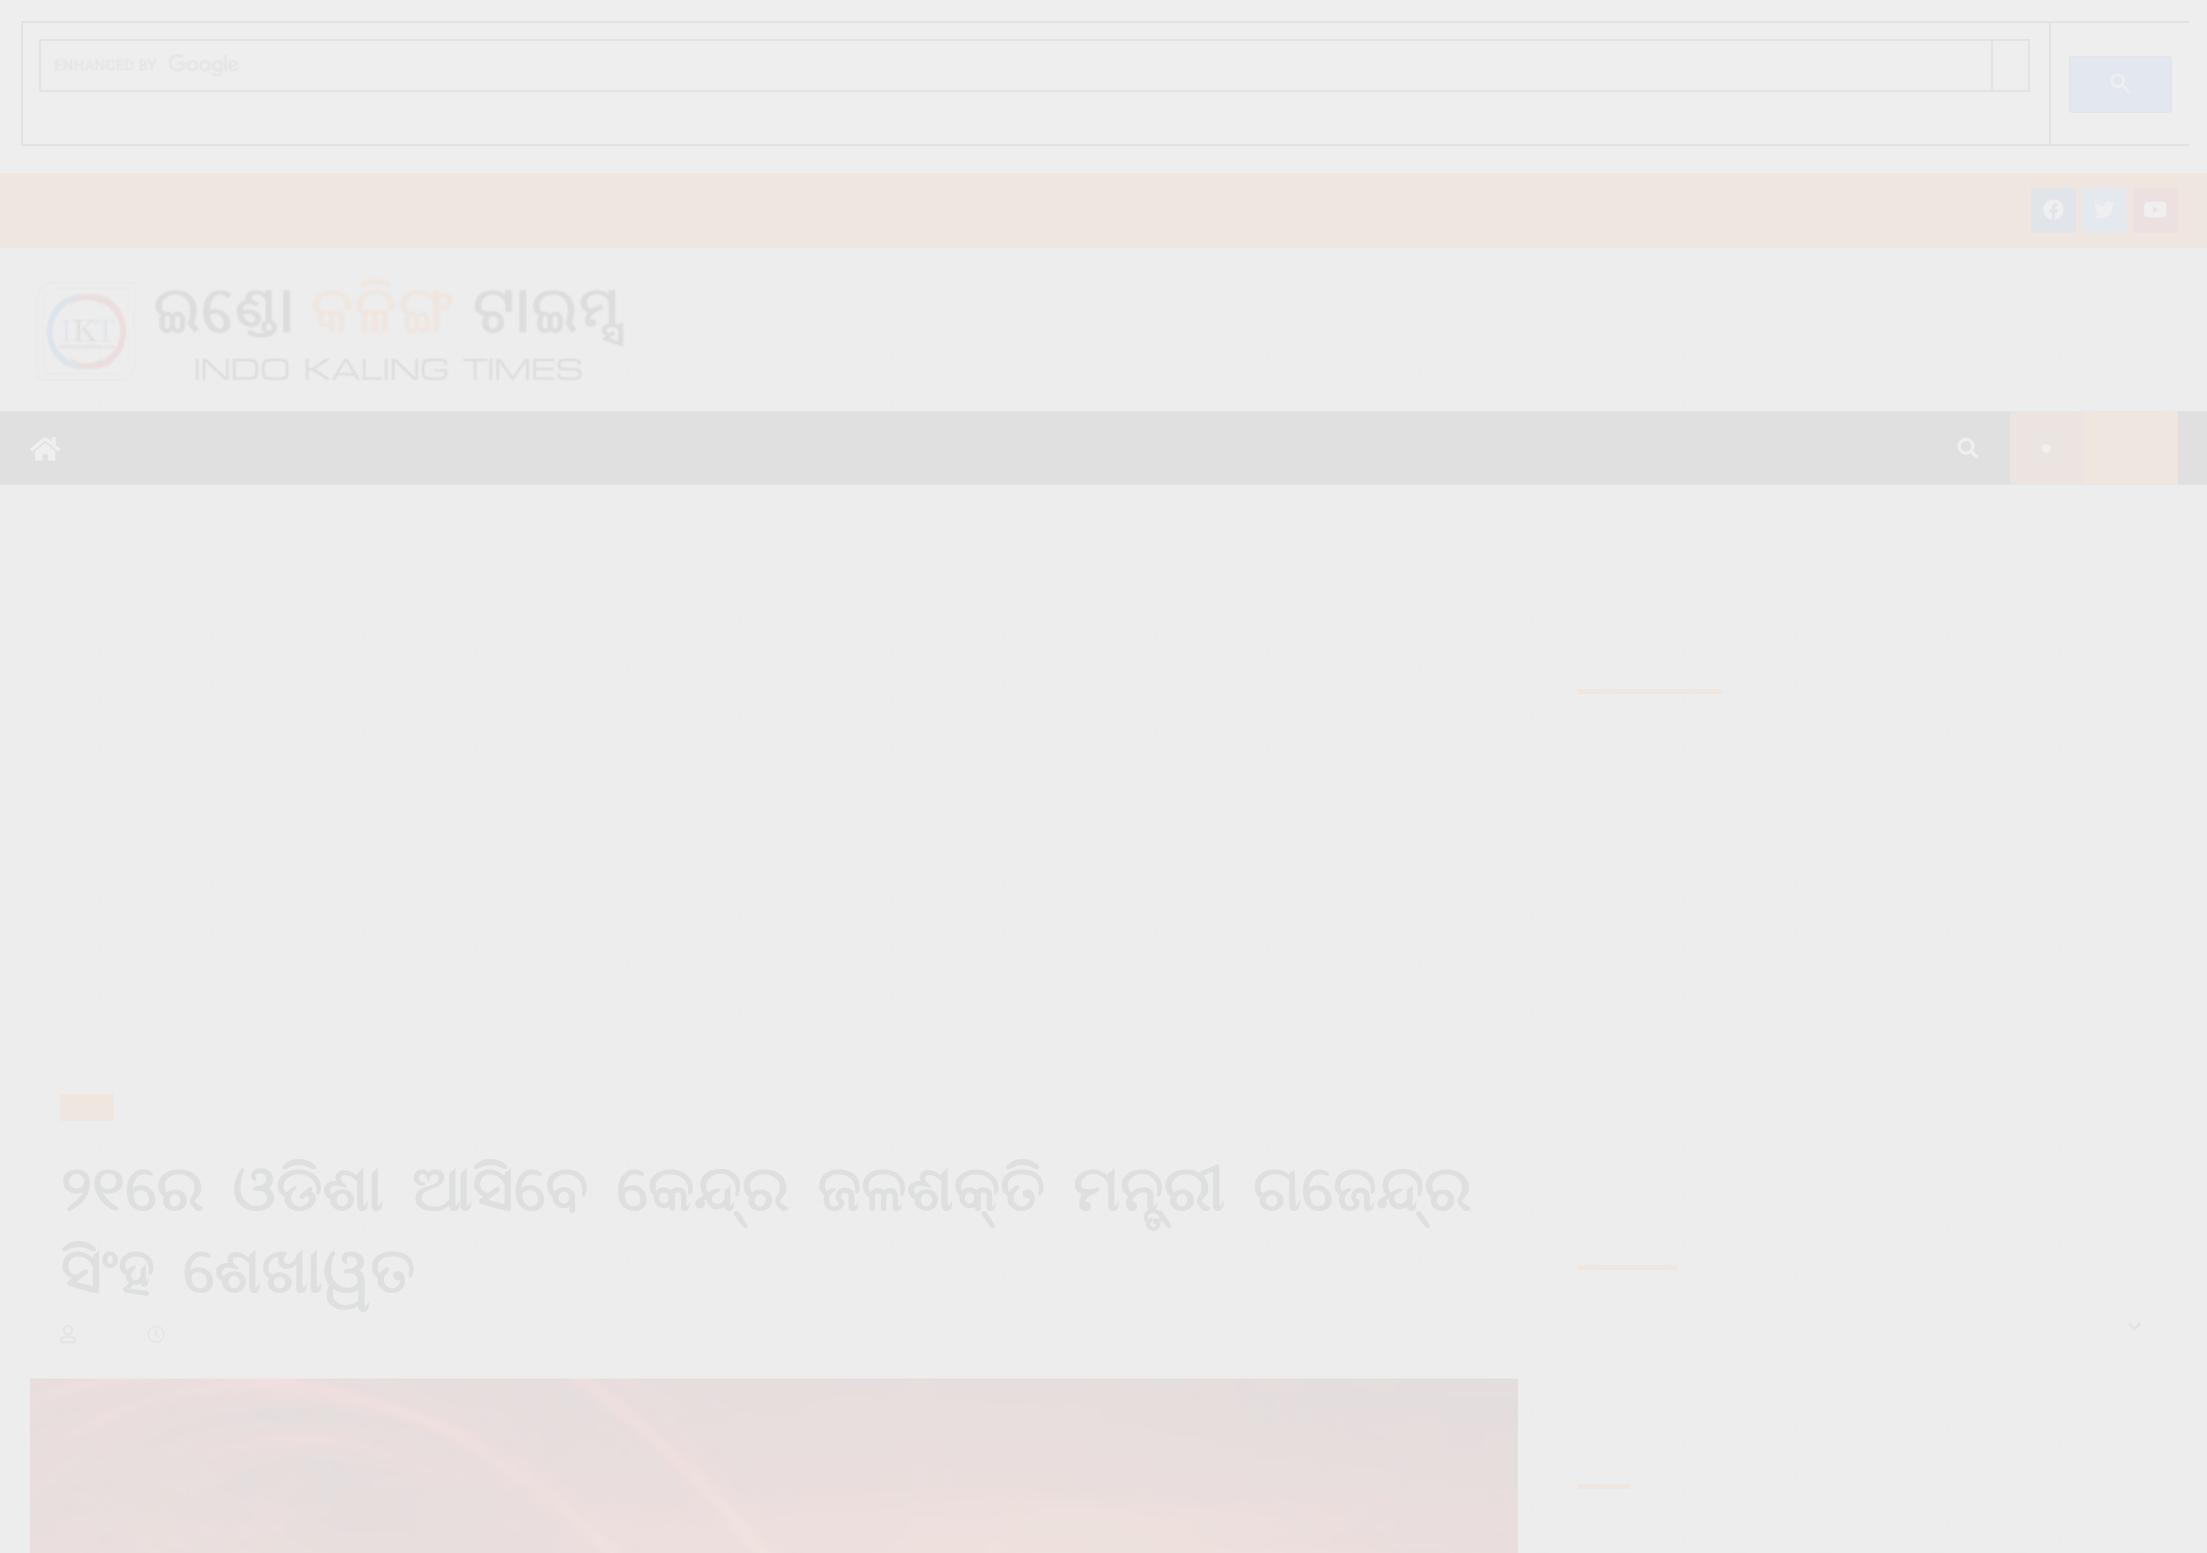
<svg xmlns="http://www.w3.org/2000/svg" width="2207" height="1553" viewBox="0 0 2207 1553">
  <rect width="100%" height="100%" fill="#eee"/>
  <image x="0" y="248" width="2207" height="1305" href="img/1.png"/>
  <path d="M2049 21h140v2H2049z" fill="#e3e3e3"/>
  <path d="M2049 144h140v2H2049z" fill="#e3e3e3"/>
  <path d="M2049 21h2v125H2049z" fill="#e3e3e3"/>
  <path d="M21 21h2030v2H21z" fill="#e3e3e3"/>
  <path d="M21 144h2030v2H21z" fill="#e3e3e3"/>
  <path d="M21 21h2v125H21z" fill="#e3e3e3"/>
  <path d="M1991 39h39v2H1991z" fill="#e3e3e3"/>
  <path d="M2028 39h2v53H2028z" fill="#e3e3e3"/>
  <path d="M1991 90h39v2H1991z" fill="#e3e3e3"/>
  <path d="M1991 39h2v53H1991z" fill="#e3e3e3"/>
  <path d="M39 39h1953v2H39z" fill="#e3e3e3"/>
  <path d="M39 90h1953v2H39z" fill="#e3e3e3"/>
  <path d="M39 39h2v53H39z" fill="#e3e3e3"/>
  <image x="54" y="54" width="185" height="23" href="img/2.png"/>
  <rect x="2070" y="57" width="101" height="55" rx="2" fill="#e3e7ef" stroke="#e1e6ee" stroke-width="2"/>
  <image x="2111" y="74" width="19" height="19" href="img/3.png"/>
  <path d="M0 173h2207v75H0z" fill="#efe6e0"/>
  <path d="M2031 188h45v45H2031z" fill="#e1e4e8"/>
  <image x="2043" y="199" width="21" height="21" href="img/4.png"/>
  <path d="M2082 188h45v45H2082z" fill="#e3e9ee"/>
  <image x="2094" y="201" width="21" height="18" href="img/5.png"/>
  <path d="M2133 188h45v45H2133z" fill="#ece0e0"/>
  <image x="2144" y="201" width="23" height="17" href="img/6.png"/>
  <image x="35" y="277" width="590" height="104" href="img/7.png"/>
  <path d="M0 411h2207v74H0z" fill="#e0e0e0"/>
  <image x="30" y="437" width="31" height="24" href="img/8.png"/>
  <image x="1957" y="437" width="22" height="22" href="img/9.png"/>
  <path d="M2084 411h94v74H2084z" fill="#efe6e0"/>
  <path d="M2010 411h74v74H2010z" fill="#ebe4e0"/>
  <circle cx="2046.5" cy="448.5" r="4.5" fill="#efefef"/>
  <path d="M60 1094h54v27H60z" fill="#efe6e0"/>
  <image x="60" y="1325" width="16" height="19" href="img/10.png"/>
  <image x="147" y="1325" width="18" height="18" href="img/11.png"/>
  <image x="30" y="1378" width="1488" height="175" href="img/12.png"/>
  <path d="M1578 689h144v5H1578z" fill="#efe6e0"/>
  <path d="M1578 1265h99v5H1578z" fill="#efe6e0"/>
  <path d="M2128.5 1323L2134.5 1329L2140.5 1323" fill="none" stroke="#e3e3e3" stroke-width="3"/>
  <path d="M1578 1484h51v5H1578z" fill="#efe6e0"/>
  <g font-family="FreeSerif" font-size="63" font-weight="bold" fill="#dedfdf">
    <text x="60" y="1211" word-spacing="-3.5">୨୧ରେ ଓଡିଶା ଆସିବେ କେନ୍ଦ୍ର ଜଳଶକ୍ତି ମନ୍ତ୍ରୀ ଗଜେନ୍ଦ୍ର</text>
    <text x="60" y="1293" word-spacing="-3.5">ସିଂହ ଶେଖାୱତ</text>
  </g>
</svg>
